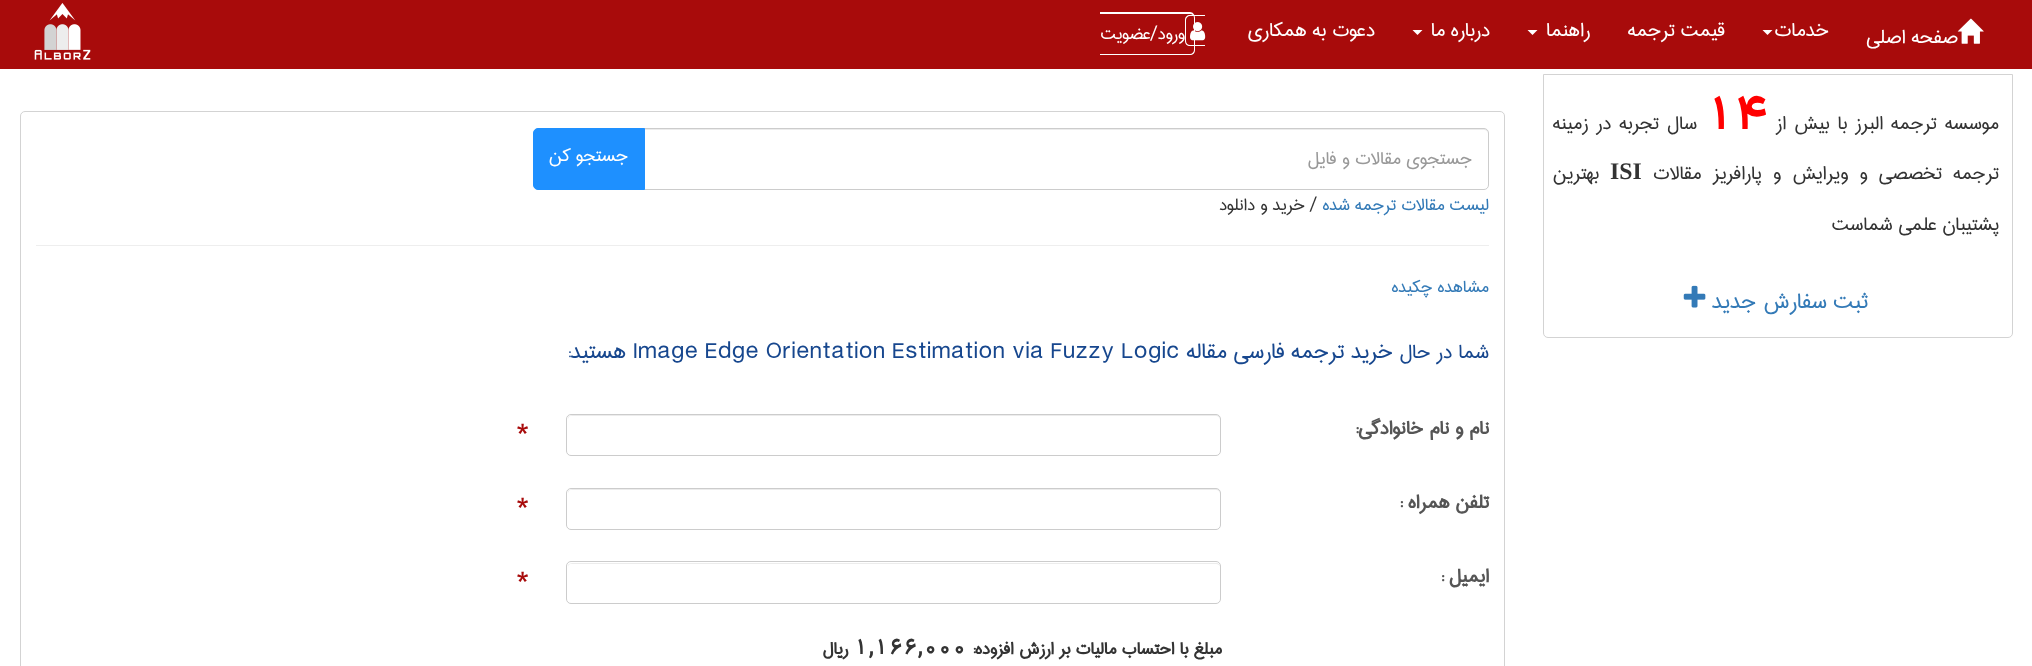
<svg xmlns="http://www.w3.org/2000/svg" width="2032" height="666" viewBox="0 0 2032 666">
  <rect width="100%" height="100%" fill="#fff"/>
  <path d="M0 0h2032v69H0z" fill="#a80b0b"/>
  <path d="M1762.5 30H1772.5L1767.5 35Z" fill="#fff"/>
  <path d="M1527.5 30H1537.5L1532.5 35Z" fill="#fff"/>
  <path d="M1412.5 30H1422.5L1417.5 35Z" fill="#fff"/>
  <path d="M1190 15H1205V46H1190C1187 46 1185 44 1185 41V20C1185 17 1187 15 1190 15ZM1190 16H1205V45H1190C1188 45 1186 43.5 1186 41V20C1186 18 1188 16 1190 16Z" fill="#fff" fill-rule="evenodd"/>
  <path d="M1100 12H1190C1193 12 1195 15 1195 18V50C1195 53 1193 55 1190 55H1100ZM1100 14H1190C1192 14 1194 15 1194 18V50C1194 52 1192 54 1190 54H1100Z" fill="#fff" fill-rule="evenodd"/>
  <image x="1190" y="22" width="16" height="19" href="img/2.png"/>
  <image x="34" y="3" width="57" height="57" href="img/3.png"/>
  <path d="M1543.5 74.5H2012.5V333C2012.5 335.5 2010.5 337.5 2008 337.5H1548C1545.5 337.5 1543.5 335.5 1543.5 333Z" fill="none" stroke="#d3d3d3"/>
  <image x="1683" y="285" width="23" height="23" href="img/4.png"/>
  <rect x="20.5" y="111.5" width="1484" height="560" rx="4.5" fill="none" stroke="#d3d3d3"/>
  <path d="M645 130H1484C1486 130 1488 132 1488 134C1488 131 1487 129 1484 129H645Z" fill="#ececec"/>
  <path d="M644.5 128.5H1484C1486.5 128.5 1488.5 130.5 1488.5 133V185C1488.5 187.5 1486.5 189.5 1484 189.5H644.5Z" fill="none" stroke="#ccc"/>
  <path d="M538 128.5H644.5V189.5H538C535.5 189.5 533.5 187.5 533.5 185V133C533.5 130.5 535.5 128.5 538 128.5Z" fill="#1e90ff" stroke="#1e90ff"/>
  <path d="M36 245h1453v1H36z" fill="#eee"/>
  <path d="M571 416H1216C1218 416 1220 418 1220 420C1220 417 1219 415 1216 415H572L569 416L568 417V420C568 418 569 416 571 416Z" fill="#ececec"/>
  <rect x="566.5" y="414.5" width="654" height="41" rx="4.5" fill="none" stroke="#ccc"/>
  <path d="M571 490H1216C1218 490 1220 492 1220 494C1220 491 1219 489 1216 489H572L569 490L568 491V494C568 492 569 490 571 490Z" fill="#ececec"/>
  <rect x="566.5" y="488.5" width="654" height="41" rx="4.5" fill="none" stroke="#ccc"/>
  <path d="M571 564H1216C1218 564 1220 565 1220 568C1220 565 1219 563 1216 563H572L569 564L568 565V568C568 565 569 564 571 564Z" fill="#ececec"/>
  <rect x="566.5" y="561.5" width="654" height="42" rx="4.5" fill="none" stroke="#ccc"/>
  <text x="1958" y="43" font-family="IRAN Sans" font-size="24.5" direction="rtl" fill="#fff">صفحه اصلی</text>
  <image x="1957" y="18" width="27" height="26" href="img/1.png"/>
  <g font-family="IRAN Sans" font-size="24.5" direction="rtl" fill="#fff">
    <text x="1829" y="36">خدمات</text>
    <text x="1725" y="36">قیمت ترجمه</text>
    <text x="1590" y="36">راهنما</text>
    <text x="1490" y="36">درباره ما</text>
    <text x="1375" y="36">دعوت به همکاری</text>
  </g>
  <text x="1185" y="39" font-family="IRAN Sans" font-size="21.25" direction="rtl" fill="#fff">ورود/عضویت</text>
  <text x="1999" y="129" word-spacing="2.25" font-family="IRAN Sans" font-size="23.75" direction="rtl" fill="#333">موسسه ترجمه البرز با بیش از</text>
  <text x="1705" y="129" font-family="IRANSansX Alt" font-size="46" font-weight="bold" fill="#f00">14</text>
  <g font-family="IRAN Sans" font-size="23.75" direction="rtl" fill="#333">
    <text x="1697" y="129">سال</text>
    <text x="1659" y="129" word-spacing="2.25">تجربه در زمینه</text>
    <text x="1999" y="179" word-spacing="5.5">ترجمه تخصصی و ویرایش و پارافریز مقالات</text>
  </g>
  <text x="1610" y="179" font-family="Liberation Serif" font-size="23.75" font-weight="bold" fill="#333">ISI</text>
  <g font-family="IRAN Sans" font-size="23.75" direction="rtl" fill="#333">
    <text x="1599" y="179">بهترین</text>
    <text x="1999" y="230">پشتیبان علمی شماست</text>
  </g>
  <g font-family="IRAN Sans" font-size="27.5" direction="rtl" fill="#337ab7">
    <text x="1868" y="308">ثبت سفارش</text>
    <text x="1756" y="308">جدید</text>
  </g>
  <text x="1472" y="164" font-family="IRAN Sans" font-size="22.5" direction="rtl" fill="#999">جستجوی مقالات و فایل</text>
  <text x="628" y="161" font-family="IRAN Sans" font-size="22.5" direction="rtl" fill="#fff">جستجو کن</text>
  <text x="1489" y="210" font-family="IRAN Sans" font-size="21.25" direction="rtl" fill="#337ab7">لیست مقالات ترجمه شده</text>
  <text x="1310" y="210" font-family="IRAN Sans" font-size="21.25" fill="#333">/</text>
  <text x="1305" y="210" font-family="IRAN Sans" font-size="21.25" direction="rtl" fill="#333">خرید و دانلود</text>
  <text x="1489" y="292" font-family="IRAN Sans" font-size="21.25" direction="rtl" fill="#337ab7">مشاهده چکیده</text>
  <text x="1489" y="358" font-family="IRAN Sans" font-size="25" direction="rtl" fill="#17478e">شما در حال</text>
  <text x="1393" y="358" font-family="IRAN Sans" font-size="27.5" direction="rtl" fill="#17478e">خرید ترجمه فارسی مقاله</text>
  <text x="633" y="358" font-family="IRAN Sans" font-size="27.5" fill="#17478e">Image Edge Orientation Estimation via Fuzzy Logic</text>
  <text x="626" y="358" font-family="IRAN Sans" font-size="27.5" direction="rtl" fill="#17478e">هستید</text>
  <text x="567" y="358" font-family="IRAN Sans" font-size="25" fill="#17478e">:</text>
  <text x="1489" y="434" font-family="IRAN Sans" font-size="23.75" font-weight="bold" direction="rtl" fill="#555">نام و نام خانوادگی:</text>
  <text x="517" y="433" font-family="IRAN Sans" font-size="21.25" fill="#a80b0b">*</text>
  <text x="1489" y="508" font-family="IRAN Sans" font-size="23.75" font-weight="bold" direction="rtl" fill="#555">تلفن همراه :</text>
  <text x="517" y="507" font-family="IRAN Sans" font-size="21.25" fill="#a80b0b">*</text>
  <text x="1489" y="582" font-family="IRAN Sans" font-size="23.75" font-weight="bold" direction="rtl" fill="#555">ایمیل :</text>
  <text x="517" y="581" font-family="IRAN Sans" font-size="21.25" fill="#a80b0b">*</text>
  <text x="1222" y="654" font-family="IRAN Sans" font-size="21.25" font-weight="bold" direction="rtl" fill="#333">مبلغ با احتساب مالیات بر ارزش افزوده:</text>
  <text x="854" y="654" font-family="IRANSansX Alt" font-size="21.25" font-weight="bold" fill="#333">1,166,000</text>
  <text x="848" y="654" font-family="IRAN Sans" font-size="21.25" font-weight="bold" direction="rtl" fill="#333">ریال</text>
</svg>
